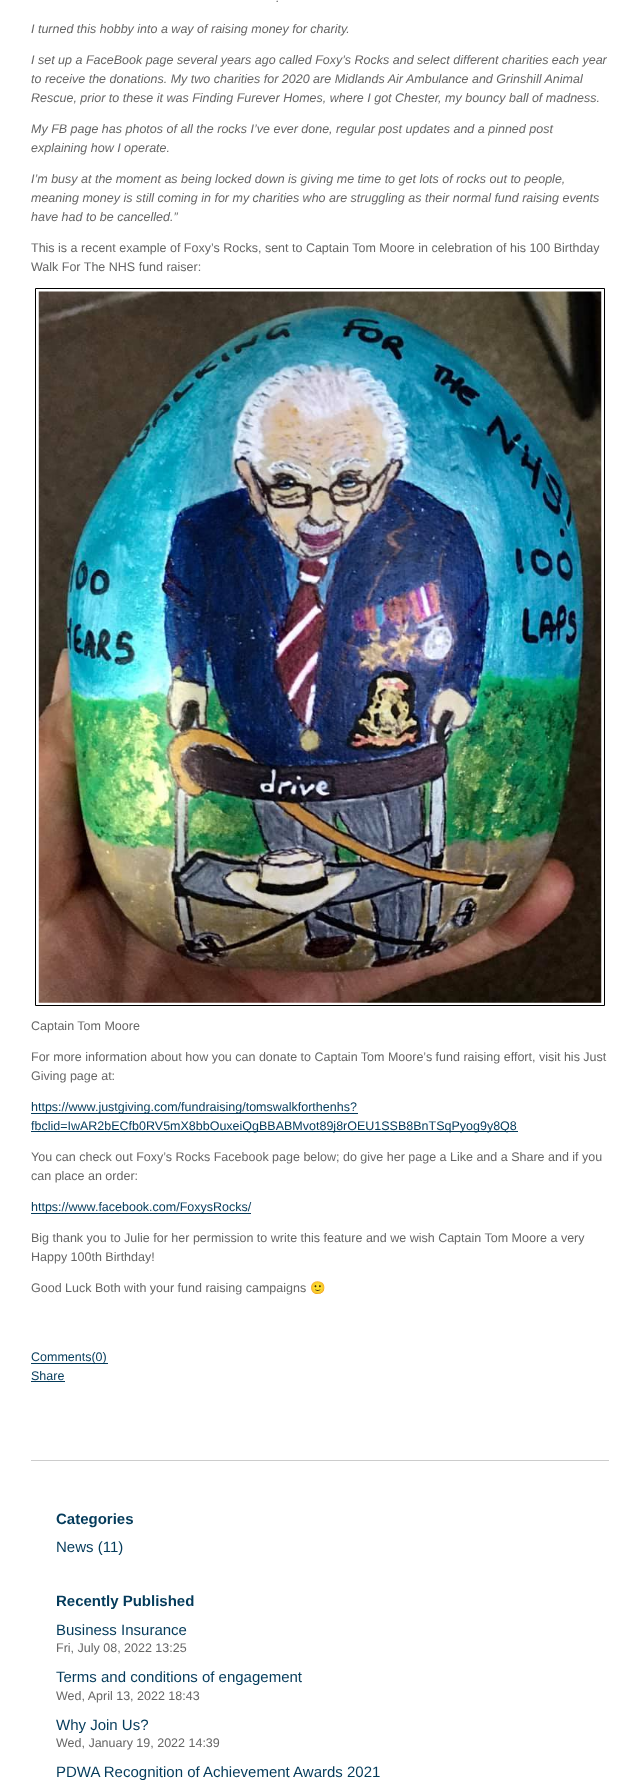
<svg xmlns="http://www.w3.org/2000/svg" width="639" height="1781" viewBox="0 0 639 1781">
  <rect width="100%" height="100%" fill="#fff"/>
  <path d="M35.5 288.5h569v717H35.5z" fill="none" stroke="#000"/>
  <image x="38" y="291" width="564" height="712" href="img/1.png"/>
  <path d="M31 1113h327v1H31z" fill="#043b5b"/>
  <path d="M31 1131h487v1H31z" fill="#043b5b"/>
  <path d="M31 1213h220v1H31z" fill="#043b5b"/>
  <path d="M31 1363h77v1H31z" fill="#043b5b"/>
  <path d="M31 1381h34v1H31z" fill="#043b5b"/>
  <path d="M31 1460h578v1H31z" fill="#ccc"/>
  <g font-family="Liberation Sans" font-size="12.5" font-style="italic" fill="#666">
    <text x="276" y="2">.</text>
    <text x="31" y="33">I turned this hobby into a way of raising money for charity.</text>
    <text x="31" y="64">I set up a FaceBook page several years ago called Foxy’s Rocks and select different charities each year</text>
    <text x="31" y="83">to receive the donations. My two charities for 2020 are Midlands Air Ambulance and Grinshill Animal</text>
    <text x="31" y="102">Rescue, prior to these it was Finding Furever Homes, where I got Chester, my bouncy ball of madness.</text>
    <text x="31" y="133">My FB page has photos of all the rocks I’ve ever done, regular post updates and a pinned post</text>
    <text x="31" y="152">explaining how I operate.</text>
    <text x="31" y="183">I’m busy at the moment as being locked down is giving me time to get lots of rocks out to people,</text>
    <text x="31" y="202">meaning money is still coming in for my charities who are struggling as their normal fund raising events</text>
    <text x="31" y="221">have had to be cancelled.”</text>
  </g>
  <g font-family="Liberation Sans" font-size="12.5" fill="#666">
    <text x="31" y="252">This is a recent example of Foxy’s Rocks, sent to Captain Tom Moore in celebration of his 100 Birthday</text>
    <text x="31" y="271">Walk For The NHS fund raiser:</text>
    <text x="31" y="1030">Captain Tom Moore</text>
    <text x="31" y="1061">For more information about how you can donate to Captain Tom Moore’s fund raising effort, visit his Just</text>
    <text x="31" y="1080">Giving page at:</text>
  </g>
  <g font-family="Liberation Sans" font-size="12.5" fill="#043b5b">
    <text x="31" y="1111">https://www.justgiving.com/fundraising/tomswalkforthenhs?</text>
    <text x="31" y="1130">fbclid=IwAR2bECfb0RV5mX8bbOuxeiQgBBABMvot89j8rOEU1SSB8BnTSqPyog9y8Q8</text>
  </g>
  <g font-family="Liberation Sans" font-size="12.5" fill="#666">
    <text x="31" y="1161">You can check out Foxy’s Rocks Facebook page below; do give her page a Like and a Share and if you</text>
    <text x="31" y="1180">can place an order:</text>
  </g>
  <text x="31" y="1211" font-family="Liberation Sans" font-size="12.5" fill="#043b5b">https://www.facebook.com/FoxysRocks/</text>
  <g font-family="Liberation Sans" font-size="12.5" fill="#666">
    <text x="31" y="1242">Big thank you to Julie for her permission to write this feature and we wish Captain Tom Moore a very</text>
    <text x="31" y="1261">Happy 100th Birthday!</text>
    <text x="31" y="1292">Good Luck Both with your fund raising campaigns</text>
  </g>
  <text x="310" y="1292" font-family="Noto Color Emoji" font-size="12.5" fill="#666">🙂</text>
  <g font-family="Liberation Sans" font-size="12.5" fill="#043b5b">
    <text x="31" y="1361">Comments(0)</text>
    <text x="31" y="1380">Share</text>
  </g>
  <text x="56" y="1524" font-family="Liberation Sans" font-size="15" font-weight="bold" fill="#043b5b">Categories</text>
  <text x="56" y="1552" font-family="Liberation Sans" font-size="15" fill="#043b5b">News (11)</text>
  <text x="56" y="1606" font-family="Liberation Sans" font-size="15" font-weight="bold" fill="#043b5b">Recently Published</text>
  <text x="56" y="1635" font-family="Liberation Sans" font-size="15" fill="#043b5b">Business Insurance</text>
  <text x="56" y="1652" font-family="Liberation Sans" font-size="12.5" fill="#666">Fri, July 08, 2022 13:25</text>
  <text x="56" y="1682" font-family="Liberation Sans" font-size="15" fill="#043b5b">Terms and conditions of engagement</text>
  <text x="56" y="1700" font-family="Liberation Sans" font-size="12.5" fill="#666">Wed, April 13, 2022 18:43</text>
  <text x="56" y="1730" font-family="Liberation Sans" font-size="15" fill="#043b5b">Why Join Us?</text>
  <text x="56" y="1747" font-family="Liberation Sans" font-size="12.5" fill="#666">Wed, January 19, 2022 14:39</text>
  <text x="56" y="1777" font-family="Liberation Sans" font-size="15" fill="#043b5b">PDWA Recognition of Achievement Awards 2021</text>
</svg>
